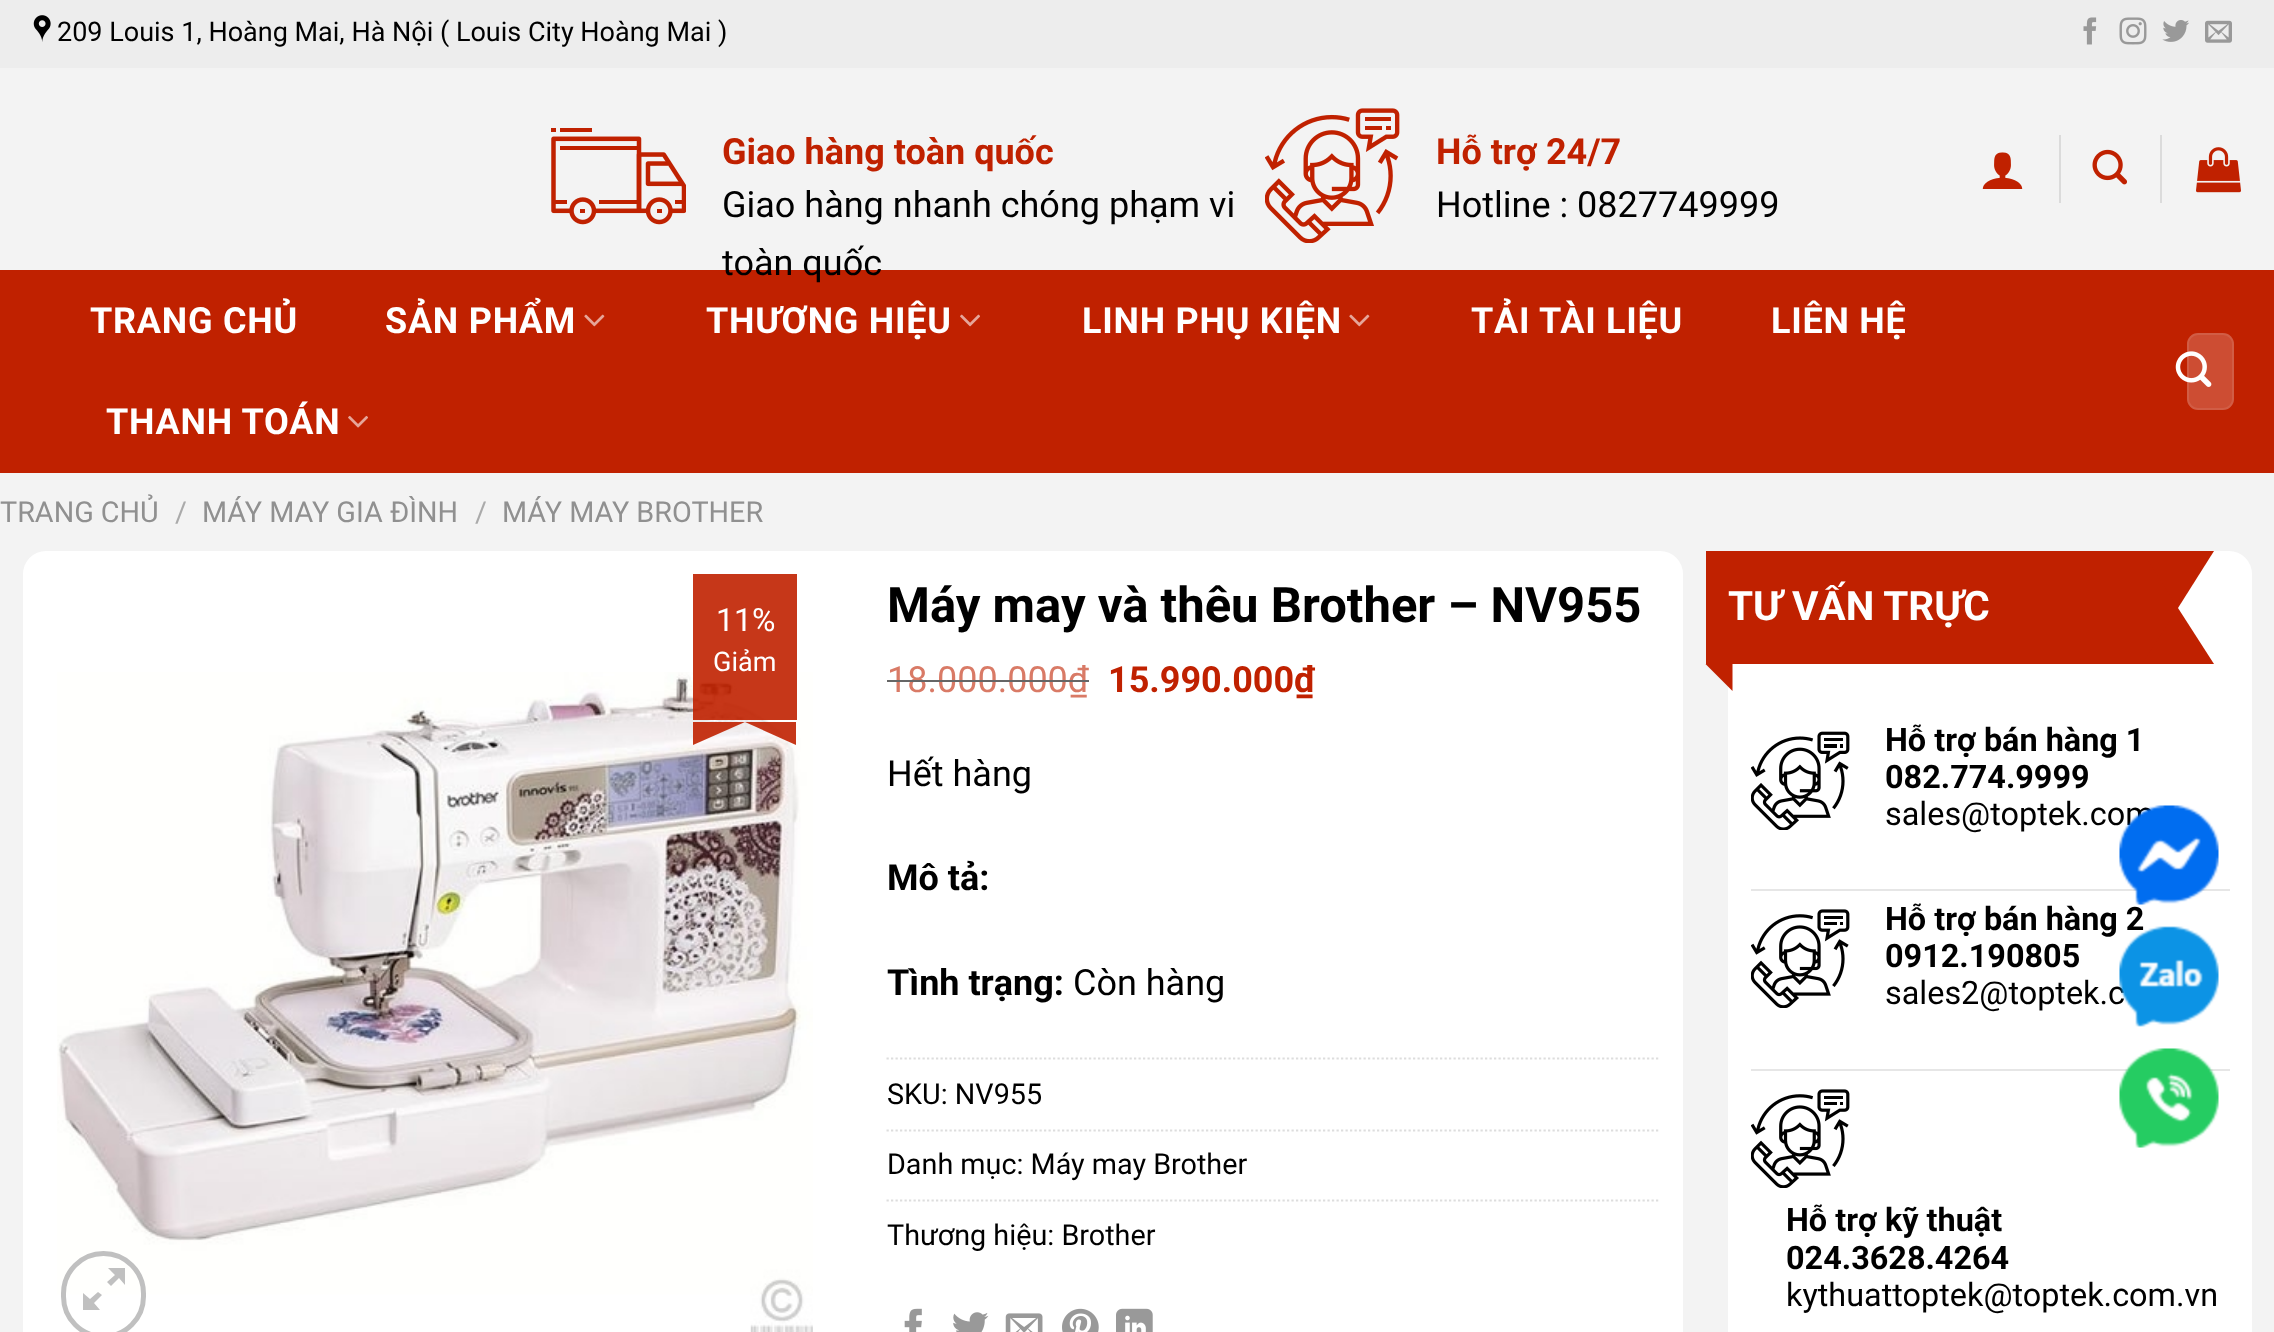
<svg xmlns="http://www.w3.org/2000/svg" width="2274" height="1332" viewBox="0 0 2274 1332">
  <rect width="100%" height="100%" fill="#f3f3f3"/>
  <path d="M0 0h2274v68H0z" fill="#ededed"/>
  <image x="33" y="15" width="18" height="27" href="img/1.png"/>
  <image x="2083" y="17" width="14" height="28" href="img/2.png"/>
  <image x="2119" y="17" width="28" height="28" href="img/3.png"/>
  <image x="2162" y="20" width="27" height="22" href="img/4.png"/>
  <image x="2205" y="20" width="27" height="23" href="img/5.png"/>
  <image x="551" y="128" width="135" height="97" href="img/6.png"/>
  <image x="1265" y="108" width="135" height="135" href="img/7.png"/>
  <image x="1982" y="152" width="41" height="37" href="img/8.png"/>
  <path d="M2059 135h2v68H2059z" fill="#dbdbdb"/>
  <image x="2092" y="149" width="35" height="36" href="img/9.png"/>
  <path d="M2160 135h2v68H2160z" fill="#dbdbdb"/>
  <image x="2196" y="147" width="45" height="46" href="img/10.png"/>
  <path d="M0 270h2274v203H0z" fill="#c02100"/>
  <image x="584" y="314" width="21" height="13" href="img/11.png"/>
  <image x="960" y="314" width="20" height="13" href="img/12.png"/>
  <image x="1349" y="314" width="21" height="13" href="img/11.png"/>
  <image x="348" y="415" width="20" height="13" href="img/13.png"/>
  <rect x="2187" y="333" width="47" height="77" rx="11" fill="#cd4d33"/>
  <rect x="2188" y="334" width="45" height="75" rx="10" fill="none" stroke="#ffffff17" stroke-width="2"/>
  <image x="2175" y="351" width="37" height="36" href="img/14.png"/>
  <rect x="23" y="551" width="1660" height="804" rx="23" fill="#fff"/>
  <image x="57" y="672" width="756" height="660" href="img/15.png"/>
  <path d="M693 574h104v146H693z" fill="#c02100e6"/>
  <path d="M796 722V745L745 722Z" fill="#c02100e6"/>
  <path d="M693 745V722H745Z" fill="#c02100e6"/>
  <rect x="63.5" y="1253.5" width="80" height="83" rx="40" fill="none" stroke="#c0c0c0" stroke-width="5"/>
  <path d="M125 1268V1285L119 1278L111 1286L107 1282L115 1275L108 1268ZM102 1295L94 1303L100 1310H83V1293L90 1299L98 1292Z" fill="#c0c0c0"/>
  <path d="M886.5 1058.5H1660.5" fill="none" stroke="#ddd" stroke-width="2.2" stroke-dasharray="2.25 2.25"/>
  <path d="M886.5 1130.5H1660.5" fill="none" stroke="#ddd" stroke-width="2.2" stroke-dasharray="2.25 2.25"/>
  <path d="M886.5 1200.5H1660.5" fill="none" stroke="#ddd" stroke-width="2.2" stroke-dasharray="2.25 2.25"/>
  <image x="904" y="1308" width="18" height="24" href="img/16.png"/>
  <image x="953" y="1312" width="36" height="20" href="img/17.png"/>
  <image x="1005" y="1313" width="38" height="19" href="img/18.png"/>
  <image x="1062" y="1308" width="37" height="24" href="img/19.png"/>
  <image x="1116" y="1308" width="37" height="24" href="img/20.png"/>
  <rect x="1728" y="551" width="524" height="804" rx="23" fill="#fff"/>
  <path d="M1706 551h472v113H1706z" fill="#c02100"/>
  <path d="M2142 551H2214L2178 608Z" fill="#c02100"/>
  <path d="M2214 664H2142L2178 608Z" fill="#c02100"/>
  <path d="M1705.5 664H1732.5V691Z" fill="#c02100"/>
  <image x="1751" y="731" width="99" height="99" href="img/21.png"/>
  <path d="M1751 889h479v2H1751z" fill="#e6e6e6"/>
  <image x="1751" y="909" width="99" height="99" href="img/22.png"/>
  <path d="M1751 1069h479v2H1751z" fill="#e6e6e6"/>
  <image x="1751" y="1089" width="99" height="99" href="img/22.png"/>
  <image x="2119" y="1048" width="100" height="100" href="img/25.png"/>
  <text x="57" y="41" font-family="Roboto" font-size="27" fill="#000">209 Louis 1, Hoàng Mai, Hà Nội ( Louis City Hoàng Mai )</text>
  <text x="722" y="164" font-family="Roboto" font-size="36" font-weight="bold" fill="#c02100">Giao hàng toàn quốc</text>
  <g font-family="Roboto" font-size="36" fill="#000">
    <text x="722" y="217">Giao hàng nhanh chóng phạm vi</text>
    <text x="722" y="275">toàn quốc</text>
  </g>
  <text x="1436" y="164" font-family="Roboto" font-size="36" font-weight="bold" fill="#c02100">Hỗ trợ 24/7</text>
  <text x="1436" y="217" font-family="Roboto" font-size="36" fill="#000">Hotline : 0827749999</text>
  <g font-family="Roboto" font-size="36" font-weight="bold" letter-spacing="0.75" fill="#fff">
    <text x="90" y="333">TRANG CHỦ</text>
    <text x="385" y="333">SẢN PHẨM</text>
    <text x="706" y="333">THƯƠNG HIỆU</text>
    <text x="1082" y="333">LINH PHỤ KIỆN</text>
    <text x="1471" y="333">TẢI TÀI LIỆU</text>
    <text x="1771" y="333">LIÊN HỆ</text>
    <text x="106" y="434">THANH TOÁN</text>
  </g>
  <text x="0" y="522" font-family="Roboto" font-size="28.75" fill="#909090">TRANG CHỦ</text>
  <text x="175" y="522" font-family="Roboto" font-size="28.75" fill="#aaa">/</text>
  <text x="202" y="522" font-family="Roboto" font-size="28.75" fill="#909090">MÁY MAY GIA ĐÌNH</text>
  <text x="475" y="522" font-family="Roboto" font-size="28.75" fill="#aaa">/</text>
  <text x="502" y="522" font-family="Roboto" font-size="28.75" fill="#909090">MÁY MAY BROTHER</text>
  <text x="716" y="631" font-family="Roboto" font-size="32" fill="#fff">11%</text>
  <text x="713" y="671" font-family="Roboto" font-size="27" fill="#fff">Giảm</text>
  <text x="887" y="622" font-family="Roboto" font-size="49" font-weight="bold" fill="#000">Máy may và thêu Brother – NV955</text>
  <text x="887" y="692" font-family="Roboto" font-size="36" fill="#d97a66">18.000.000₫</text>
  <path d="M887 680h202v2H887z" fill="#666"/>
  <text x="1108" y="692" font-family="Roboto" font-size="36" font-weight="bold" fill="#c02100">15.990.000₫</text>
  <text x="887" y="786" font-family="Roboto" font-size="36" fill="#000">Hết hàng</text>
  <g font-family="Roboto" font-size="36" font-weight="bold" fill="#000">
    <text x="887" y="890">Mô tả:</text>
    <text x="887" y="995">Tình trạng:</text>
  </g>
  <text x="1073" y="995" font-family="Roboto" font-size="36" fill="#000">Còn hàng</text>
  <g font-family="Roboto" font-size="28.75" fill="#000">
    <text x="887" y="1104">SKU: NV955</text>
    <text x="887" y="1174">Danh mục: Máy may Brother</text>
    <text x="887" y="1245">Thương hiệu: Brother</text>
  </g>
  <text x="1728" y="620" font-family="Roboto" font-size="40.5" font-weight="bold" fill="#fff">TƯ VẤN TRỰC</text>
  <g font-family="Roboto" font-size="32.4" font-weight="bold" fill="#000">
    <text x="1885" y="751">Hỗ trợ bán hàng 1</text>
    <text x="1885" y="788">082.774.9999</text>
  </g>
  <text x="1885" y="825" font-family="Roboto" font-size="32.4" fill="#000">sales@toptek.com</text>
  <g font-family="Roboto" font-size="32.4" font-weight="bold" fill="#000">
    <text x="1885" y="930">Hỗ trợ bán hàng 2</text>
    <text x="1885" y="967">0912.190805</text>
  </g>
  <text x="1885" y="1004" font-family="Roboto" font-size="32.4" fill="#000">sales2@toptek.c</text>
  <g font-family="Roboto" font-size="32.4" font-weight="bold" fill="#000">
    <text x="1786" y="1231">Hỗ trợ kỹ thuật</text>
    <text x="1786" y="1269">024.3628.4264</text>
  </g>
  <text x="1786" y="1306" font-family="Roboto" font-size="32.4" fill="#000">kythuattoptek@toptek.com.vn</text>
  <image x="2119" y="805" width="100" height="100" href="img/23.png"/>
  <image x="2119" y="926" width="100" height="101" href="img/24.png"/>
</svg>
